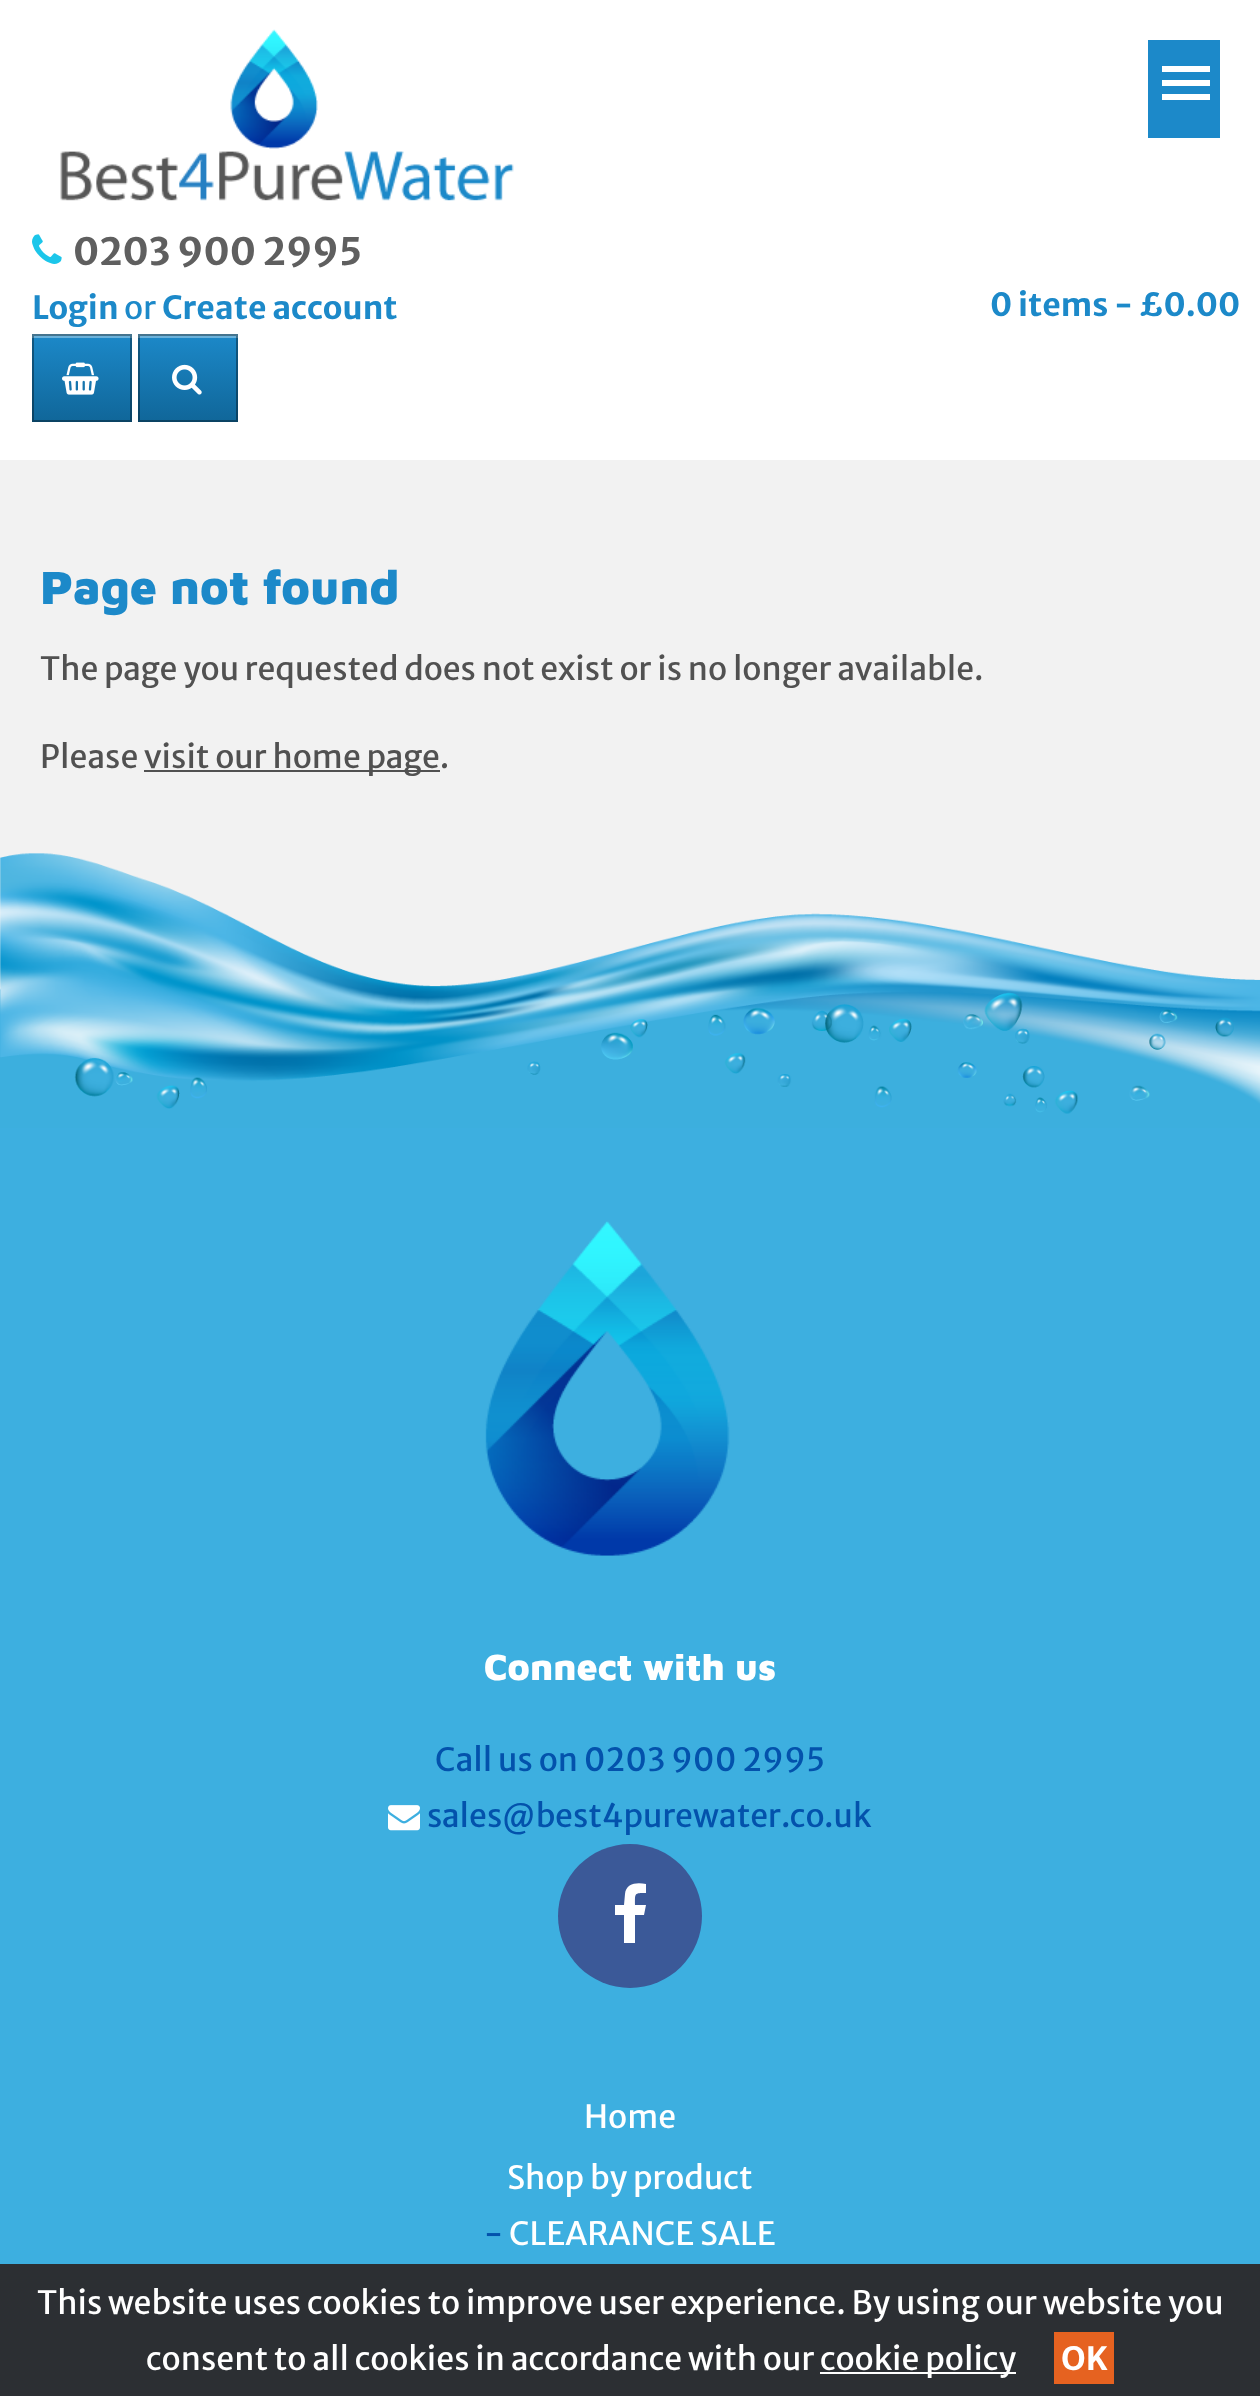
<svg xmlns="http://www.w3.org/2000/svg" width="1260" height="2396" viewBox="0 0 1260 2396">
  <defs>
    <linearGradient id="g1" gradientUnits="userSpaceOnUse" x1="82" y1="334" x2="82" y2="422"><stop offset="0" stop-color="#1c89c9"/><stop offset="1" stop-color="#106699"/></linearGradient>
    <linearGradient id="g2" gradientUnits="userSpaceOnUse" x1="188" y1="334" x2="188" y2="422"><stop offset="0" stop-color="#1c89c9"/><stop offset="1" stop-color="#106699"/></linearGradient>
  </defs>
  <rect width="100%" height="100%" fill="#f2f2f2"/>
  <path d="M0 0h1260v460H0z" fill="#fff"/>
  <path d="M1148 40h72v98H1148z" fill="#1c89c9"/>
  <path d="M1162 80h48v6H1162z" fill="#fff"/>
  <path d="M1162 66h48v6H1162z" fill="#fff"/>
  <path d="M1162 94h48v6H1162z" fill="#fff"/>
  <image x="60" y="29" width="454" height="172" href="img/1.png"/>
  <image x="32" y="234" width="30" height="30" href="img/2.png"/>
  <path d="M32 338h100v84H32z" fill="url(#g1)"/>
  <path d="M32 334h100v4H32z" fill="#6bb2db"/>
  <path d="M33 335h98v86H33z" fill="none" stroke="#00000059" stroke-width="2"/>
  <image x="62" y="362" width="37" height="33" href="img/3.png"/>
  <path d="M138 338h100v84H138z" fill="url(#g2)"/>
  <path d="M138 334h100v4H138z" fill="#6bb2db"/>
  <path d="M139 335h98v86H139z" fill="none" stroke="#00000059" stroke-width="2"/>
  <image x="172" y="364" width="30" height="31" href="img/4.png"/>
  <path d="M144 770h296v2H144z" fill="#515151"/>
  <image x="0" y="853" width="1260" height="275" href="img/5.png"/>
  <path d="M0 1128h1260v1136H0z" fill="#3dafe0"/>
  <image x="485" y="1221" width="245" height="335" href="img/6.png"/>
  <image x="388" y="1805" width="32" height="26" href="img/7.png"/>
  <circle cx="630" cy="1916" r="72" fill="#3b5998"/>
  <path d="M646 1884V1893C634 1893 635 1893 635 1905H646L644 1915H635V1943H624V1915H615V1905H624L625 1894C626 1883 637 1882 646 1884Z" fill="#fff"/>
  <path d="M0 2264h1260v132H0z" fill="#2c2f33"/>
  <path d="M820 2372h196v2H820z" fill="#fff"/>
  <path d="M1054 2332h60v52H1054z" fill="#e66220"/>
  <text x="73" y="265" font-family="Merriweather Sans" font-size="37.75" font-weight="bold" fill="#5f5f5f">0203 900 2995</text>
  <text x="32" y="319" font-family="Merriweather Sans" font-size="32" font-weight="bold" fill="#1c89c9">Login</text>
  <text x="124" y="319" font-family="Merriweather Sans" font-size="32" fill="#1c89c9">or</text>
  <g font-family="Merriweather Sans" font-size="32" font-weight="bold" fill="#1c89c9">
    <text x="162" y="319">Create account</text>
    <text x="990" y="316">0 items - £0.00</text>
  </g>
  <text x="40" y="604" font-family="Maven Pro" font-size="48" font-weight="900" fill="#1c89c9">Page not found</text>
  <g font-family="Merriweather Sans" font-size="32" fill="#515151">
    <text x="40" y="680">The page you requested does not exist or is no longer available.</text>
    <text x="40" y="768">Please</text>
    <text x="144" y="768">visit our home page.</text>
  </g>
  <text x="484" y="1680" font-family="Maven Pro" font-size="37.25" font-weight="900" fill="#fff">Connect with us</text>
  <g font-family="Merriweather Sans" font-size="32" fill="#0352ac">
    <text x="435" y="1771">Call us on 0203 900 2995</text>
    <text x="427" y="1827">sales@best4purewater.co.uk</text>
  </g>
  <g font-family="Merriweather Sans" font-size="32" fill="#fff">
    <text x="584" y="2128">Home</text>
    <text x="507" y="2189">Shop by product</text>
  </g>
  <text x="484" y="2245" font-family="Merriweather Sans" font-size="32" fill="#0352ac">-</text>
  <g font-family="Merriweather Sans" font-size="32" fill="#fff">
    <text x="509" y="2245">CLEARANCE SALE</text>
    <text x="37" y="2314">This website uses cookies to improve user experience. By using our website you</text>
    <text x="146" y="2370">consent to all cookies in accordance with our</text>
    <text x="820" y="2370">cookie policy</text>
  </g>
  <text x="1061" y="2370" font-family="Merriweather Sans" font-size="32" font-weight="bold" fill="#fff">OK</text>
</svg>
